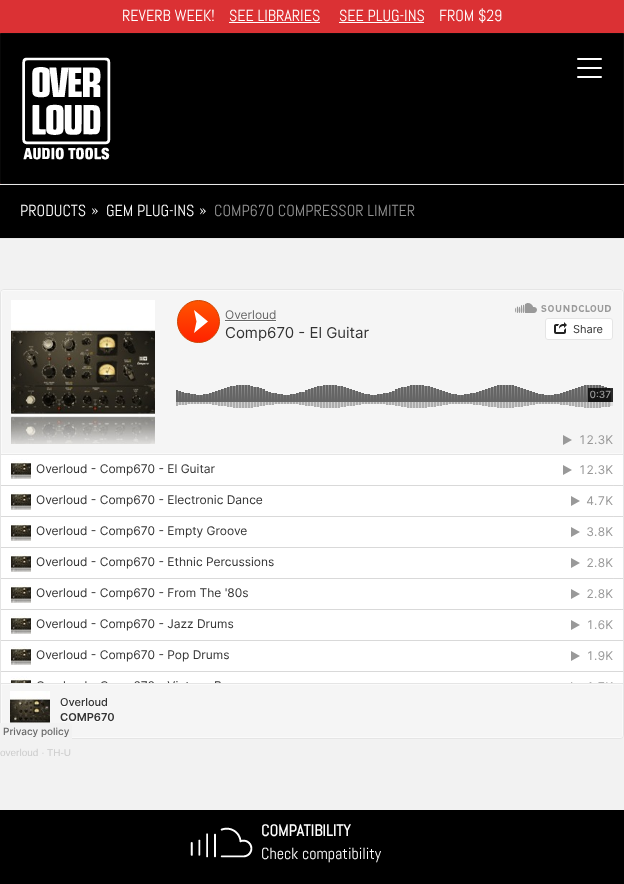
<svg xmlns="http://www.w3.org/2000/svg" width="624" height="884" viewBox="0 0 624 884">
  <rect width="100%" height="100%" fill="#db3134"/>
  <path d="M229 22h91v1H229z" fill="#fff"/>
  <path d="M339 22h85v1H339z" fill="#fff"/>
  <path d="M0.5 33.5h623v150H0.5z" fill="#000" stroke="#080808"/>
  <image x="22" y="57" width="89" height="103" href="img/1.png"/>
  <rect x="577" y="58" width="25" height="2" rx="1" fill="#fff"/>
  <rect x="577" y="67" width="25" height="2" rx="1" fill="#fff"/>
  <rect x="577" y="76" width="25" height="2" rx="1" fill="#fff"/>
  <path d="M0 239h624v571H0z" fill="#f2f2f2"/>
  <path d="M0 185h624v53H0z" fill="#000"/>
  <path d="M0 184h624v1H0z" fill="#e8e8e8"/>
  <path d="M0 238h624v1H0z" fill="#e8e8e8"/>
  <image x="0" y="289" width="624" height="450" href="img/2.png"/>
  <path d="M0 810h624v74H0z" fill="#000"/>
  <image x="190" y="827" width="63" height="31" href="img/3.png"/>
  <g font-family="Abel" font-size="16" fill="#fff">
    <text x="122" y="21">REVERB WEEK!</text>
    <text x="229" y="21">SEE LIBRARIES</text>
    <text x="339" y="21">SEE PLUG-INS</text>
    <text x="439" y="21">FROM $29</text>
    <text x="20" y="216">PRODUCTS</text>
    <text x="91" y="215">»</text>
    <text x="106" y="216">GEM PLUG-INS</text>
    <text x="199" y="215">»</text>
  </g>
  <text x="214" y="216" font-family="Abel" font-size="16" fill="#939393">COMP670 COMPRESSOR LIMITER</text>
  <text x="0" y="756" font-family="Liberation Sans" font-size="10" fill="#ccc">overloud · TH-U</text>
  <text x="261" y="836" font-family="Abel" font-size="16" font-weight="bold" fill="#fff">COMPATIBILITY</text>
  <text x="261" y="859" font-family="Abel" font-size="16" fill="#fff">Check compatibility</text>
</svg>
